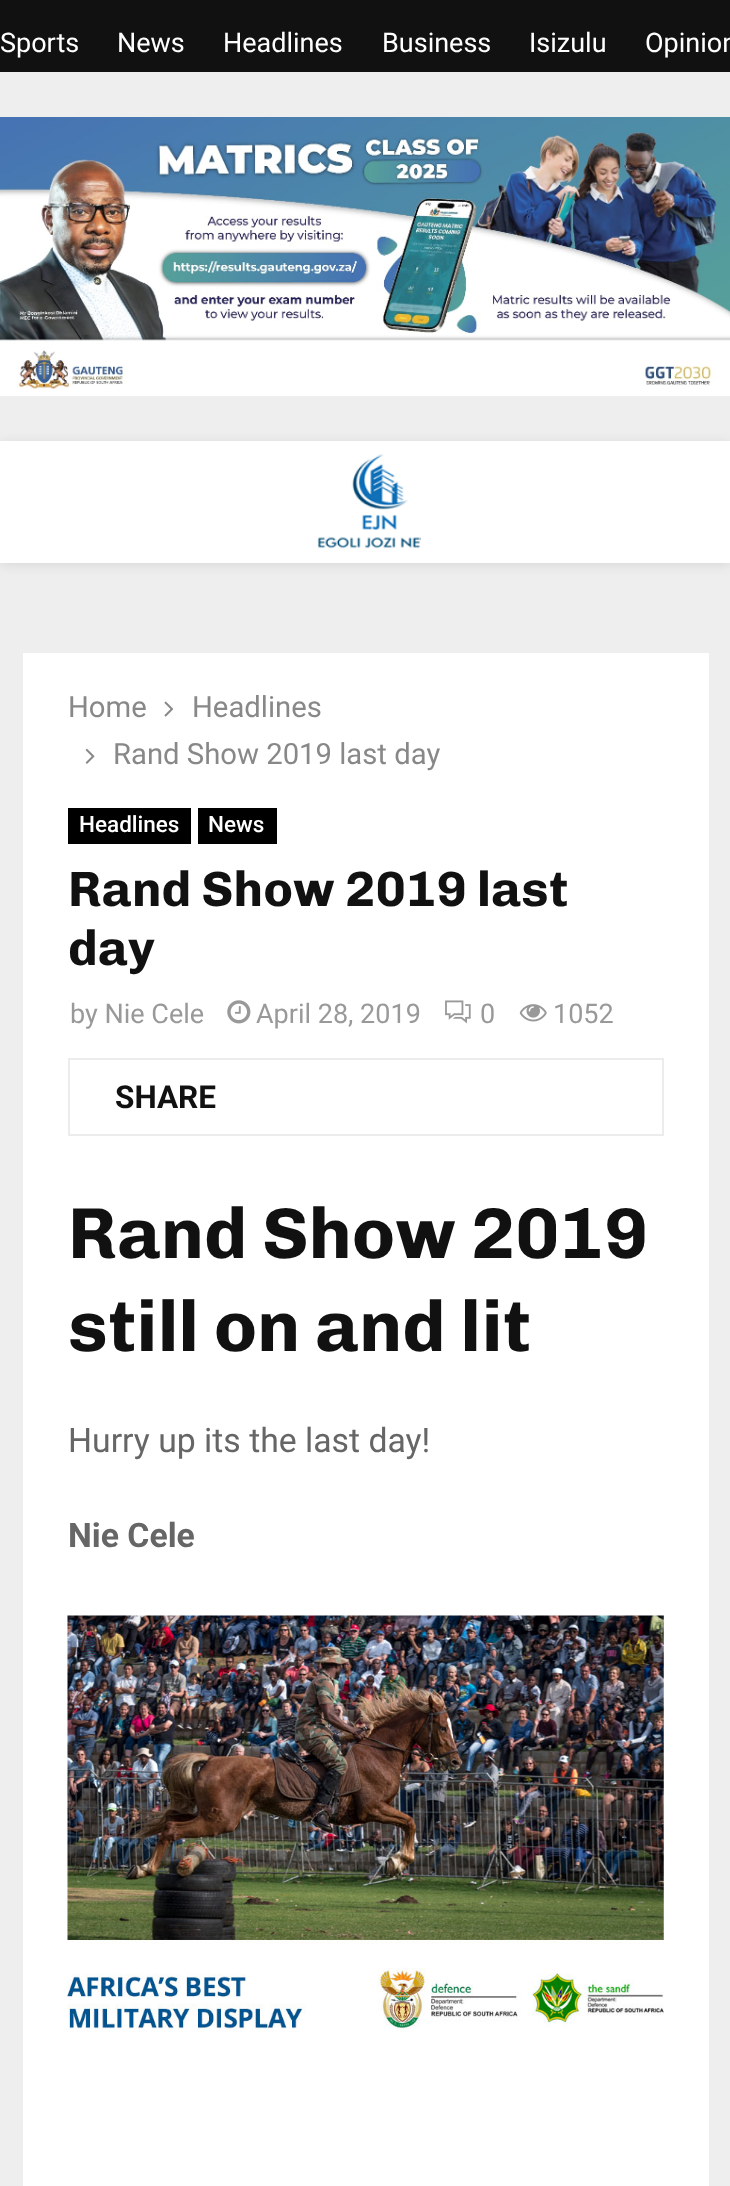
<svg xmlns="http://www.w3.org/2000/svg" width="730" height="2186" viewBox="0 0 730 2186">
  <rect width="100%" height="100%" fill="#eee"/>
  <path d="M0 0h730v72H0z" fill="#111"/>
  <image x="0" y="117" width="730" height="279" href="img/1.png"/>
  <path d="M0 443h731v122H0z" fill="#bebebe75" filter="blur(5.5px)"/>
  <path d="M0 441h730v122H0z" fill="#fff"/>
  <image x="317" y="454" width="104" height="95" href="img/2.png"/>
  <path d="M23 653h686v1533H23z" fill="#fff"/>
  <image x="164" y="701" width="10" height="16" href="img/3.png"/>
  <image x="85" y="748" width="10" height="16" href="img/4.png"/>
  <path d="M68 808h123v36H68z" fill="#000"/>
  <path d="M198 808h79v36H198z" fill="#000"/>
  <image x="227" y="1000" width="24" height="24" href="img/5.png"/>
  <image x="445" y="1000" width="26" height="24" href="img/6.png"/>
  <image x="519" y="1004" width="28" height="18" href="img/7.png"/>
  <path d="M69 1059h594v76H69z" fill="none" stroke="#ececec" stroke-width="2"/>
  <image x="67" y="1615" width="597" height="417" href="img/8.png"/>
  <g font-family="Roboto" font-size="27" fill="#fff">
    <text x="0" y="52">Sports</text>
    <text x="117" y="52">News</text>
    <text x="223" y="52">Headlines</text>
    <text x="382" y="52">Business</text>
    <text x="529" y="52">Isizulu</text>
    <text x="645" y="52">Opinion</text>
  </g>
  <g font-family="Roboto" font-size="29.25" fill="#888">
    <text x="68" y="717">Home</text>
    <text x="192" y="717">Headlines</text>
    <text x="113" y="764">Rand Show 2019 last day</text>
  </g>
  <g font-family="Roboto" font-size="22.5" font-weight="500" fill="#fff">
    <text x="79" y="832">Headlines</text>
    <text x="208" y="832">News</text>
  </g>
  <g font-family="Chivo" font-size="49.5" font-weight="bold" fill="#111">
    <text x="68" y="906">Rand Show 2019 last</text>
    <text x="68" y="965">day</text>
  </g>
  <g font-family="Roboto" font-size="27" fill="#999">
    <text x="70" y="1023">by Nie Cele</text>
    <text x="256" y="1023">April 28, 2019</text>
    <text x="480" y="1023">0</text>
    <text x="553" y="1023">1052</text>
  </g>
  <text x="115" y="1108" font-family="Roboto" font-size="31.5" font-weight="bold" fill="#111">SHARE</text>
  <g font-family="Chivo" font-size="72" font-weight="bold" fill="#111">
    <text x="68" y="1258">Rand Show 2019</text>
    <text x="68" y="1351">still on and lit</text>
  </g>
  <text x="68" y="1452" font-family="Roboto" font-size="33.75" fill="#666">Hurry up its the last day!</text>
  <text x="68" y="1547" font-family="Roboto" font-size="33.75" font-weight="bold" fill="#666">Nie Cele</text>
</svg>
